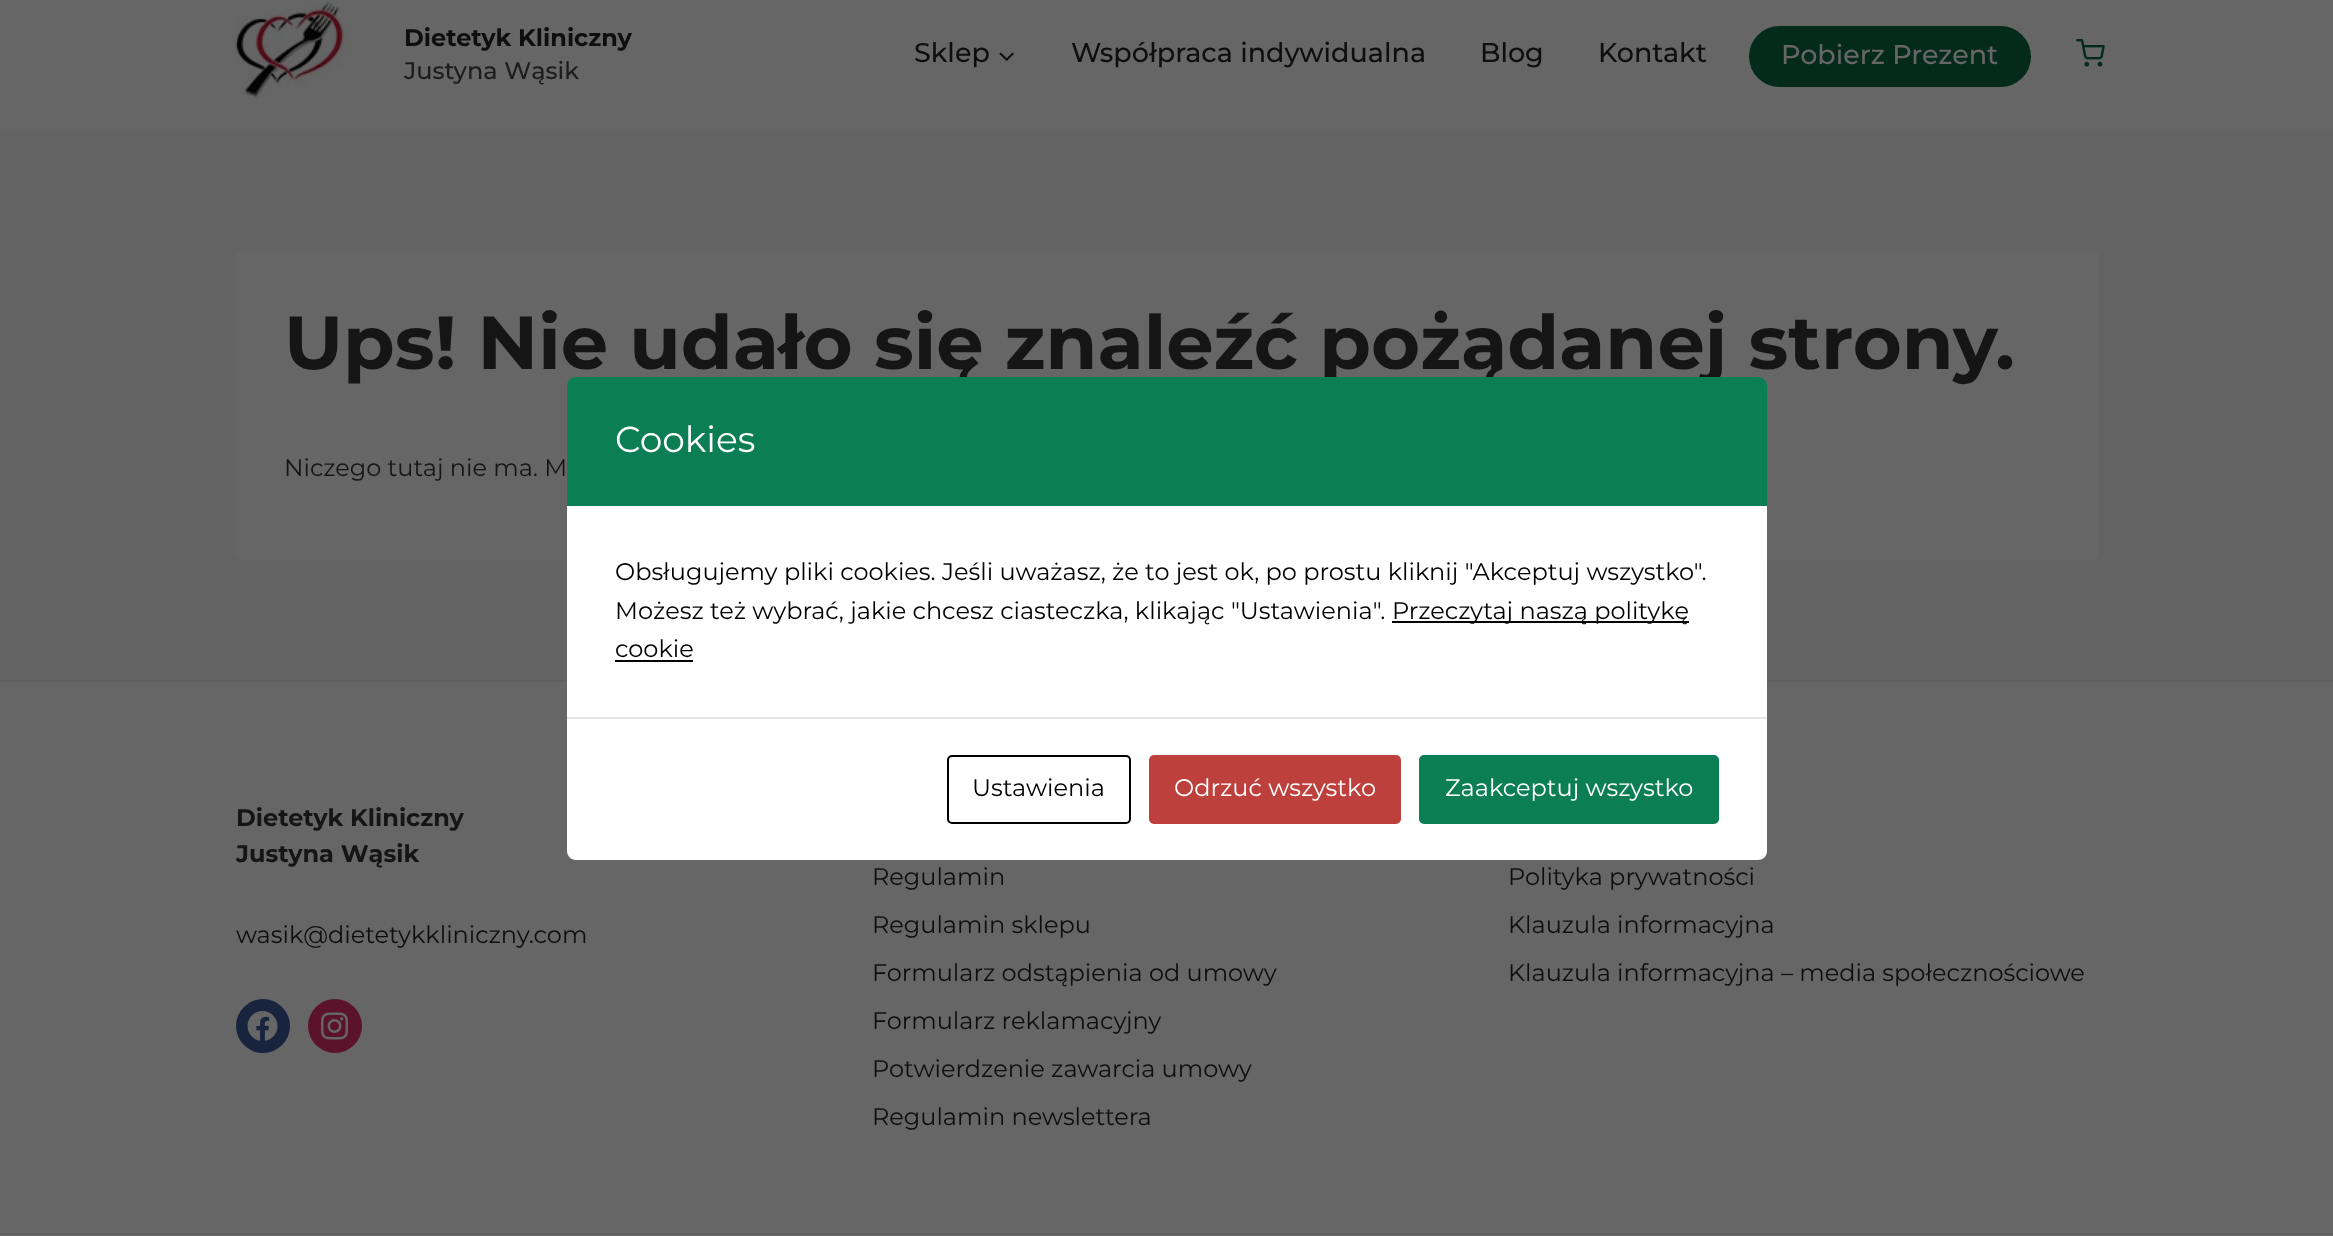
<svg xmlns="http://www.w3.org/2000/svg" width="2333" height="1236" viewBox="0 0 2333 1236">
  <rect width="100%" height="100%" fill="#636363"/>
  <path d="M0 0h2333v131H0z" fill="#666"/>
  <image x="235" y="0" width="120" height="100" href="img/1.png"/>
  <image x="999" y="52" width="15" height="9" href="img/2.png"/>
  <rect x="1749" y="26" width="282" height="61" rx="30.5" fill="#042a1c"/>
  <image x="2076" y="39" width="29" height="28" href="img/3.png"/>
  <rect x="236" y="251" width="1863" height="309" rx="6" fill="#666"/>
  <path d="M0 682h2333v551H0z" fill="#666"/>
  <path d="M0 680h2333v2H0z" fill="#5f5f5f"/>
  <circle cx="263" cy="1026" r="27" fill="#18243d"/>
  <image x="247" y="1011" width="31" height="30" href="img/4.png"/>
  <circle cx="335" cy="1026" r="27" fill="#5a132b"/>
  <image x="321" y="1012" width="27" height="28" href="img/5.png"/>
  <path d="M0 1235h2333v1H0z" fill="#666"/>
  <path d="M0 1233h2333v2H0z" fill="#5f5f5f"/>
  <path d="M567 506h1200v211H567z" fill="#fff"/>
  <path d="M1392 621h297v2H1392z" fill="#000"/>
  <path d="M615 660h78v2H615z" fill="#000"/>
  <path d="M567 717H1767V851C1767 856 1763 860 1758 860H576C571 860 567 856 567 851Z" fill="#fff"/>
  <path d="M567 717h1200v2H567z" fill="#e6e6e6"/>
  <rect x="948" y="756" width="182" height="67" rx="4" fill="none" stroke="#000" stroke-width="2"/>
  <rect x="1150" y="756" width="250" height="67" rx="4" fill="#bd403c" stroke="#bd403c" stroke-width="2"/>
  <rect x="1420" y="756" width="298" height="67" rx="4" fill="#0b7e54" stroke="#0b7e54" stroke-width="2"/>
  <text x="404" y="46" font-family="Montserrat" font-size="24" font-weight="bold" fill="#0e0e0e">Dietetyk Kliniczny</text>
  <text x="404" y="79" font-family="Montserrat" font-size="24" font-weight="500" fill="#1c1c1c">Justyna Wąsik</text>
  <g font-family="Montserrat" font-size="27" font-weight="500" fill="#0e0e0e">
    <text x="914" y="62">Sklep</text>
    <text x="1071" y="62">Współpraca indywidualna</text>
    <text x="1480" y="62">Blog</text>
    <text x="1598" y="62">Kontakt</text>
  </g>
  <text x="1781" y="64" font-family="Montserrat" font-size="27" font-weight="500" fill="#666">Pobierz Prezent</text>
  <text x="284" y="369" font-family="Montserrat" font-size="75" font-weight="bold" fill="#151515">Ups! Nie udało się znaleźć pożądanej strony.</text>
  <text x="284" y="476" font-family="Montserrat" font-size="24" fill="#151515">Niczego tutaj nie ma. M</text>
  <g font-family="Montserrat" font-size="24" font-weight="bold" fill="#151515">
    <text x="236" y="826">Dietetyk Kliniczny</text>
    <text x="236" y="862">Justyna Wąsik</text>
  </g>
  <g font-family="Montserrat" font-size="24" fill="#0e0e0e">
    <text x="236" y="943">wasik@dietetykkliniczny.com</text>
    <text x="872" y="885">Regulamin</text>
    <text x="872" y="933">Regulamin sklepu</text>
    <text x="872" y="981">Formularz odstąpienia od umowy</text>
    <text x="872" y="1029">Formularz reklamacyjny</text>
    <text x="872" y="1077">Potwierdzenie zawarcia umowy</text>
    <text x="872" y="1125">Regulamin newslettera</text>
    <text x="1508" y="885">Polityka prywatności</text>
    <text x="1508" y="933">Klauzula informacyjna</text>
    <text x="1508" y="981">Klauzula informacyjna – media społecznościowe</text>
  </g>
  <path d="M576 377H1758C1763 377 1767 381 1767 386V506H567V386C567 381 571 377 576 377Z" fill="#0b7e54"/>
  <text x="615" y="452" font-family="Montserrat" font-size="36" fill="#fff">Cookies</text>
  <g font-family="Montserrat" font-size="24" fill="#000">
    <text x="615" y="580">Obsługujemy pliki cookies. Jeśli uważasz, że to jest ok, po prostu kliknij "Akceptuj wszystko".</text>
    <text x="615" y="619">Możesz też wybrać, jakie chcesz ciasteczka, klikając "Ustawienia".</text>
    <text x="1392" y="619">Przeczytaj naszą politykę</text>
    <text x="615" y="657">cookie</text>
    <text x="972" y="796">Ustawienia</text>
  </g>
  <g font-family="Montserrat" font-size="24" fill="#fff">
    <text x="1174" y="796">Odrzuć wszystko</text>
    <text x="1445" y="796">Zaakceptuj wszystko</text>
  </g>
</svg>
